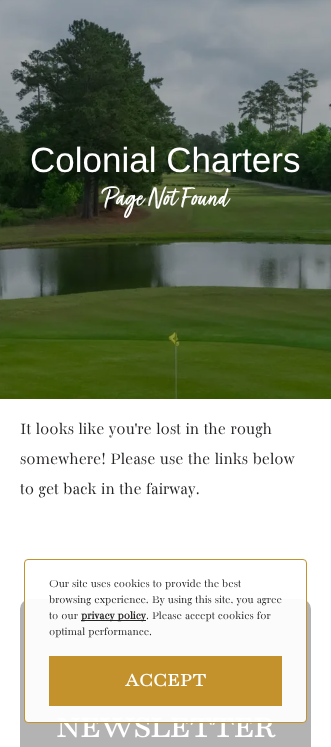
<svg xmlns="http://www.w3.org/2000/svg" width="331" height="747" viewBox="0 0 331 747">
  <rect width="100%" height="100%" fill="#fff"/>
  <image x="0" y="0" width="331" height="399" href="img/1.png"/>
  <rect x="20" y="599" width="291" height="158" rx="10" fill="#b3b3b3"/>
  <text x="30" y="172" font-family="Liberation Sans" font-size="35" fill="#fff">Colonial Charters</text>
  <text x="103" y="208" font-family="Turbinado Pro" font-size="30" fill="#fff">Page Not Found</text>
  <g font-family="Bacasime Antique" font-size="18" fill="#262323">
    <text x="20" y="434">It looks like you're lost in the rough</text>
    <text x="20" y="464">somewhere! Please use the links below</text>
    <text x="20" y="494">to get back in the fairway.</text>
  </g>
  <text x="56" y="737" font-family="Bacasime Antique" font-size="32" font-weight="bold" fill="#fff">NEWSLETTER</text>
  <rect x="24" y="559" width="283" height="164" rx="6" fill="#fffffff2"/>
  <rect x="24.5" y="559.5" width="282" height="163" rx="3.5" fill="none" stroke="#c3922d"/>
  <path d="M49 656h233v50H49z" fill="#c3922d"/>
  <text x="125" y="686" font-family="Bacasime Antique" font-size="20" font-weight="bold" letter-spacing="0.5" fill="#fff">ACCEPT</text>
  <g font-family="Bacasime Antique" font-size="12" fill="#262323">
    <text x="49" y="635">optimal performance.</text>
    <text x="146" y="619">. Please accept cookies for</text>
  </g>
  <path d="M81 620h65v1H81z" fill="#262323"/>
  <text x="81" y="619" font-family="Bacasime Antique" font-size="12" font-weight="bold" fill="#262323">privacy policy</text>
  <g font-family="Bacasime Antique" font-size="12" fill="#262323">
    <text x="49" y="619">to our</text>
    <text x="49" y="603">browsing experience. By using this site, you agree</text>
    <text x="49" y="587">Our site uses cookies to provide the best</text>
  </g>
</svg>
